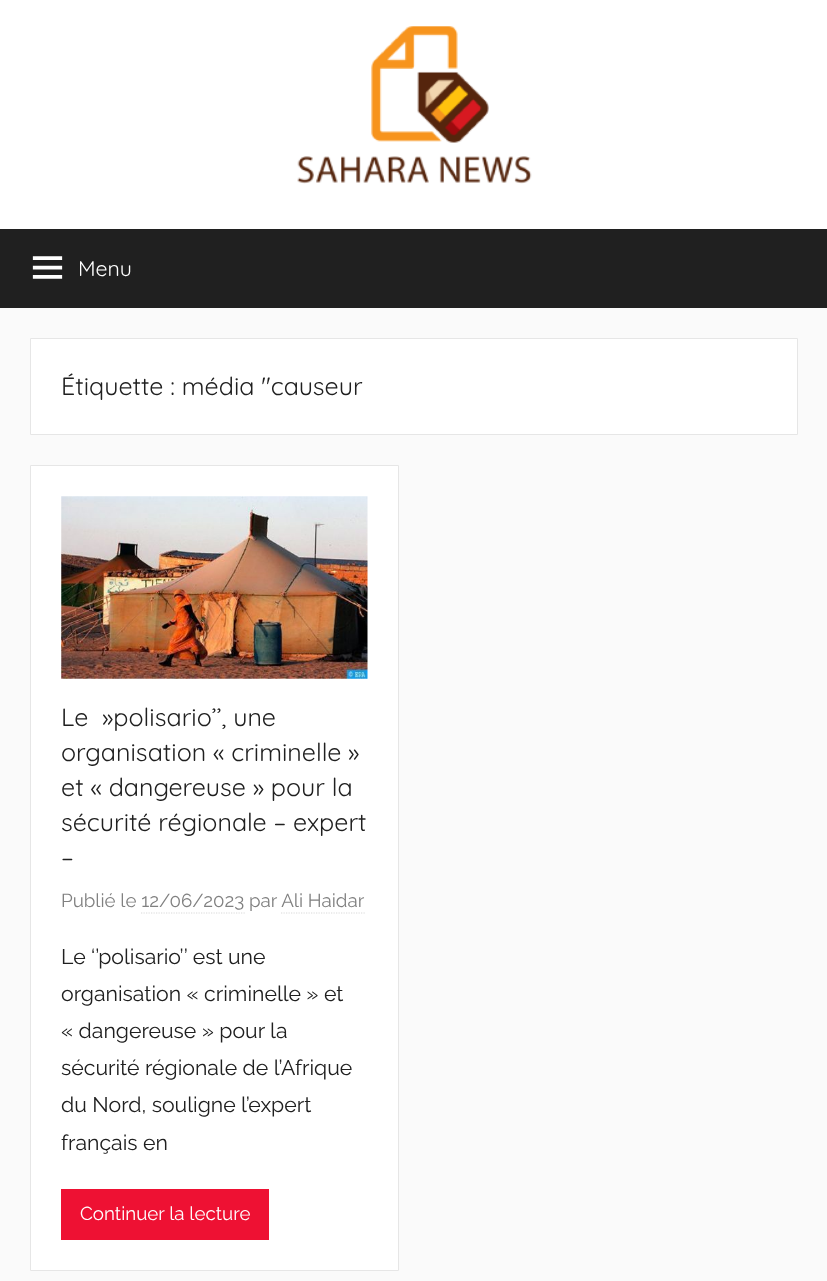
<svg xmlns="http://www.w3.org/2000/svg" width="827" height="1281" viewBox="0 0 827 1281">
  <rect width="100%" height="100%" fill="#fafafa"/>
  <path d="M0 0h827v229H0z" fill="#fff"/>
  <image x="297" y="26" width="235" height="158" href="img/1.png"/>
  <path d="M0 229h827v79H0z" fill="#202020"/>
  <image x="32" y="256" width="31" height="23" href="img/2.png"/>
  <path d="M30.5 338.5h767v96H30.5z" fill="#fff" stroke="#e6e6e6"/>
  <path d="M30.5 465.5h368v805H30.5z" fill="#fff" stroke="#e6e6e6"/>
  <image x="61" y="496" width="307" height="183" href="img/3.png"/>
  <path d="M141 913H245" fill="none" stroke="#d9d9d9" stroke-width="1.2" stroke-dasharray="1.25 1.25"/>
  <path d="M281 913H365" fill="none" stroke="#d9d9d9" stroke-width="1.2" stroke-dasharray="1.25 1.25"/>
  <path d="M61 1189h208v51H61z" fill="#e13"/>
  <text x="78" y="276" font-family="Quicksand" font-size="21.25" font-weight="300" fill="#fff">Menu</text>
  <g font-family="Quicksand" font-size="25" font-weight="300" fill="#202020">
    <text x="61" y="395">Étiquette : média "causeur</text>
    <text x="61" y="726" xml:space="preserve">Le  »polisario’’, une</text>
    <text x="61" y="761">organisation « criminelle »</text>
    <text x="61" y="796">et « dangereuse » pour la</text>
    <text x="61" y="831">sécurité régionale – expert</text>
    <text x="61" y="866">–</text>
  </g>
  <text x="61" y="907" font-family="Raleway" font-size="18.75" font-weight="100" fill="#808080">Publié le 12/06/2023 par Ali Haidar</text>
  <g font-family="Raleway" font-size="21.25" font-weight="100" fill="#202020">
    <text x="61" y="964">Le ‘’polisario’’ est une</text>
    <text x="61" y="1001">organisation « criminelle » et</text>
    <text x="61" y="1038">« dangereuse » pour la</text>
    <text x="61" y="1075">sécurité régionale de l’Afrique</text>
    <text x="61" y="1112">du Nord, souligne l’expert</text>
    <text x="61" y="1150">français en</text>
  </g>
  <text x="80" y="1220" font-family="Raleway" font-size="18.75" font-weight="100" fill="#fff">Continuer la lecture</text>
</svg>
